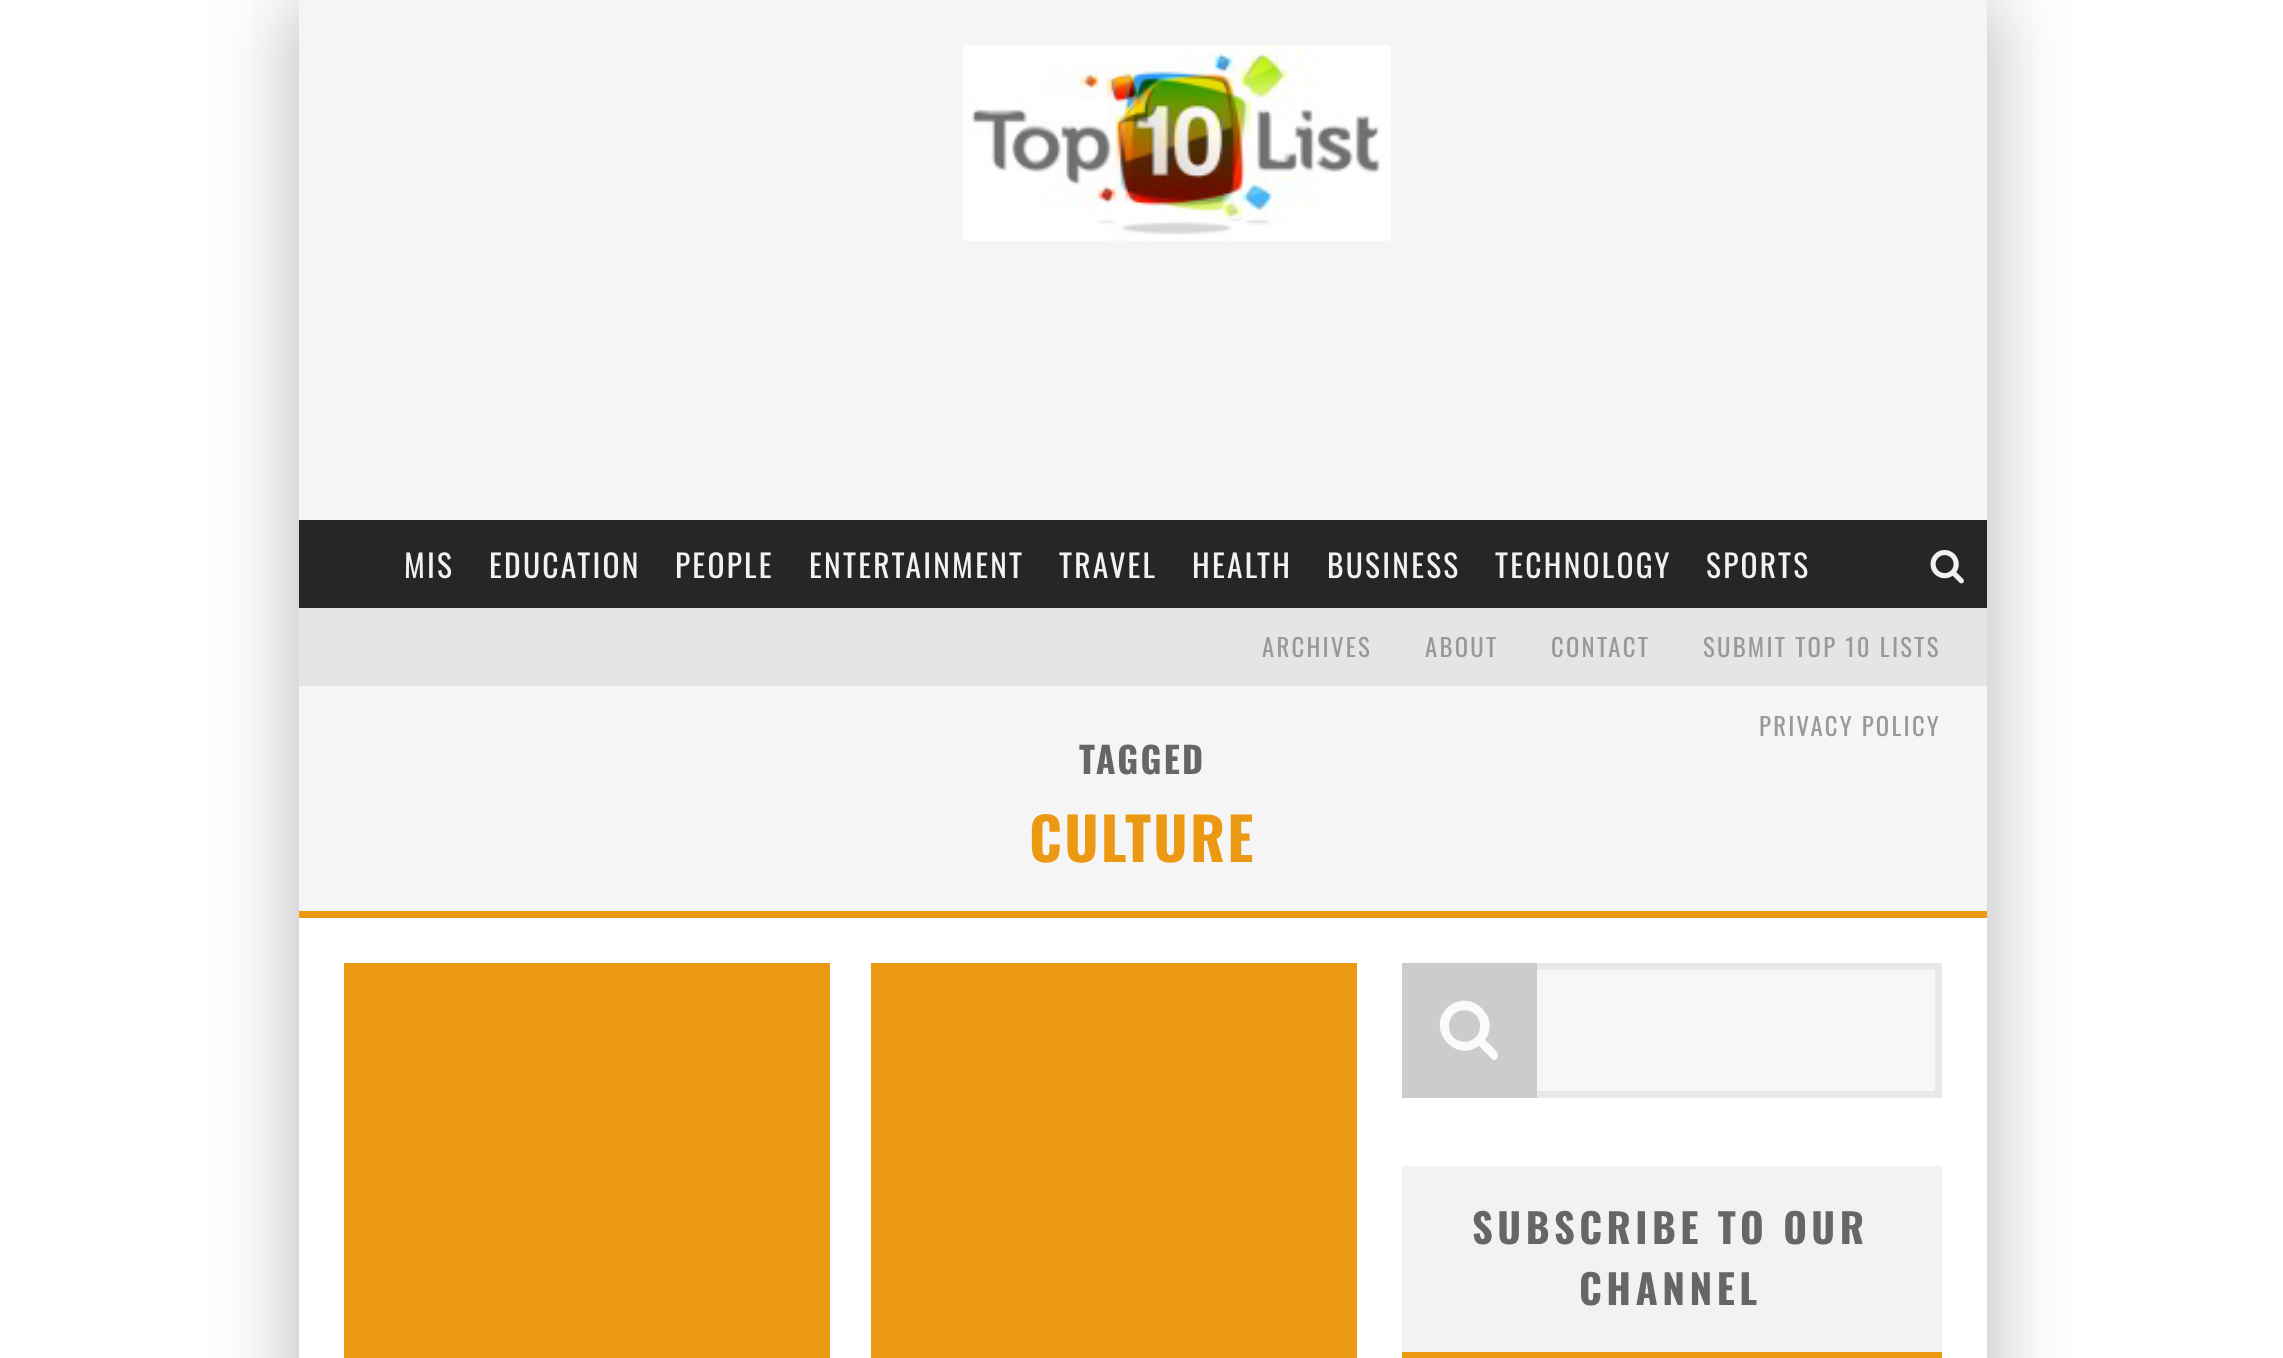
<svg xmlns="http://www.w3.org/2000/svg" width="2283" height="1358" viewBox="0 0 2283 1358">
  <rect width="100%" height="100%" fill="#fff"/>
  <path d="M277 0h1687v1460H277z" fill="#00000026" filter="blur(34px)"/>
  <path d="M322 0h1687v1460H322z" fill="#00000026" filter="blur(34px)"/>
  <path d="M299 0h1688v520H299z" fill="#f5f5f5"/>
  <image x="963" y="45" width="428" height="196" href="img/1.png"/>
  <path d="M299 520h1688v88H299z" fill="#262626"/>
  <image x="1930" y="550" width="34" height="34" href="img/2.png"/>
  <path d="M299 608h1688v78H299z" fill="#e5e5e5"/>
  <path d="M299 918h1688v440H299z" fill="#fff"/>
  <path d="M299 686h1688v225H299z" fill="#f5f5f5"/>
  <path d="M299 911h1688v7H299z" fill="#eb9812"/>
  <path d="M344 963h486v395H344z" fill="#eb9812"/>
  <path d="M871 963h486v395H871z" fill="#eb9812"/>
  <path d="M1537 970h398v121H1537z" fill="#f7f7f7"/>
  <path d="M1405.5 966.5h533v128H1405.5z" fill="none" stroke="#e9e9e9" stroke-width="7"/>
  <path d="M1402 963h135v135H1402z" fill="#ccc"/>
  <path d="M1480 1026C1480 1047 1449 1047 1449 1026C1449 1005 1480 1005 1480 1026ZM1498 1055C1498 1051 1488 1043 1485 1040C1502 1016 1469 987 1447 1008C1426 1030 1455 1063 1479 1046L1491 1058C1492 1059 1493 1060 1494 1060C1496 1060 1498 1058 1498 1055Z" fill="#fafafa"/>
  <path d="M1402 1166h540v186H1402z" fill="#f2f2f2"/>
  <path d="M1402 1352h540v6H1402z" fill="#eb9812"/>
  <g font-family="Oswald" font-size="31.5" letter-spacing="2.25" fill="#f2f2f2">
    <text x="404" y="578">MIS</text>
    <text x="489" y="578">EDUCATION</text>
    <text x="675" y="578">PEOPLE</text>
    <text x="809" y="578">ENTERTAINMENT</text>
    <text x="1059" y="578">TRAVEL</text>
    <text x="1192" y="578">HEALTH</text>
    <text x="1327" y="578">BUSINESS</text>
    <text x="1495" y="578">TECHNOLOGY</text>
    <text x="1706" y="578">SPORTS</text>
  </g>
  <g font-family="Oswald" font-size="24.75" letter-spacing="2.25" fill="#999">
    <text x="1262" y="657">ARCHIVES</text>
    <text x="1425" y="657">ABOUT</text>
    <text x="1551" y="657">CONTACT</text>
    <text x="1703" y="657">SUBMIT TOP 10 LISTS</text>
    <text x="1759" y="736">PRIVACY POLICY</text>
  </g>
  <text x="1079" y="774" font-family="Oswald" font-size="36" font-weight="bold" letter-spacing="2.25" fill="#666">TAGGED</text>
  <text x="1029" y="862" font-family="Oswald" font-size="58.5" font-weight="bold" letter-spacing="2.25" fill="#eb9812">CULTURE</text>
  <g font-family="Oswald" font-size="40.5" font-weight="bold" letter-spacing="4.5" fill="#666">
    <text x="1472" y="1244">SUBSCRIBE TO OUR</text>
    <text x="1579" y="1305">CHANNEL</text>
  </g>
</svg>
